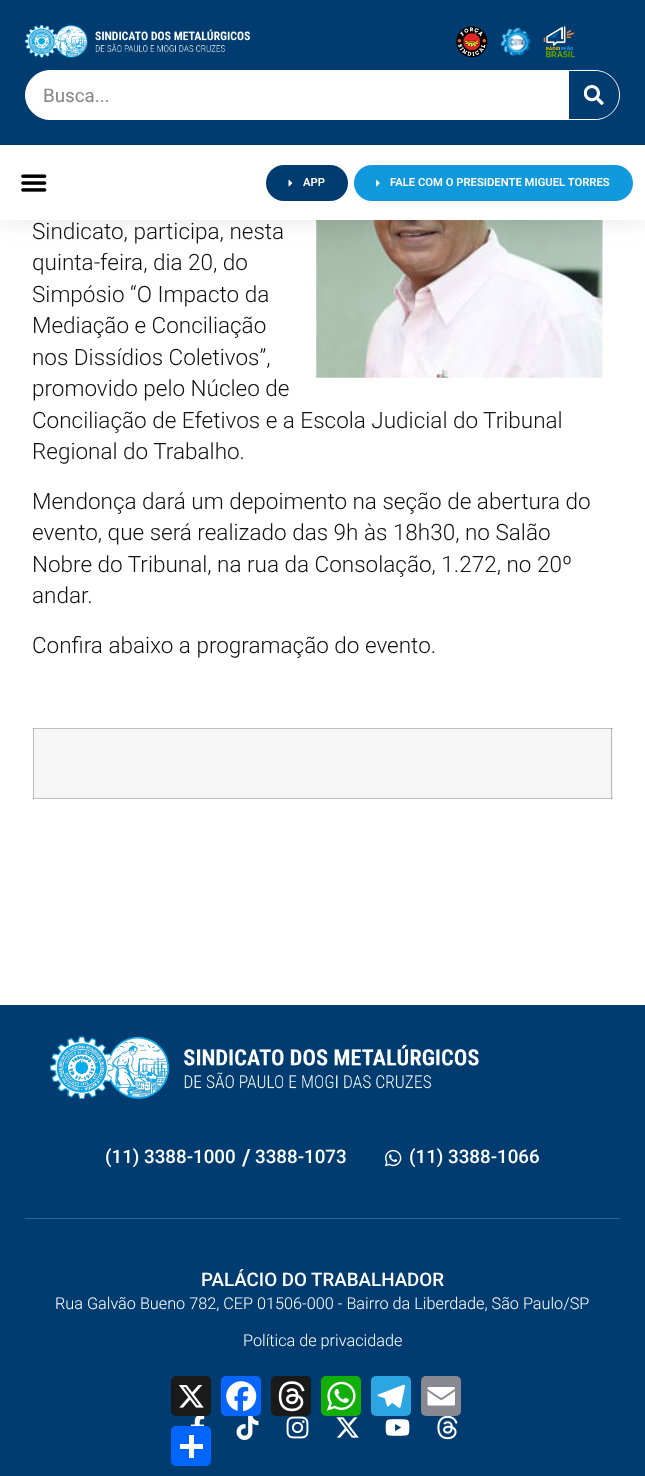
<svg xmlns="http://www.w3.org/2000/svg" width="645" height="1476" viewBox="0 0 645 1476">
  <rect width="100%" height="100%" fill="#fff"/>
  <path d="M33 798h580v1H33z" fill="#c0c0c0"/>
  <path d="M33 798h1v1H33z" fill="#a0a0a0"/>
  <path d="M611 798h1v1H611z" fill="#a0a0a0"/>
  <image x="316" y="220" width="287" height="158" href="img/9.png"/>
  <path d="M0 0h645v220H0z" fill="#0000001a" filter="blur(12.5px)"/>
  <path d="M0 145h645v75H0z" fill="#fff"/>
  <path d="M0 0h645v145H0z" fill="#003c70"/>
  <image x="25" y="25" width="225" height="33" href="img/1.png"/>
  <image x="456" y="26" width="32" height="32" href="img/2.png"/>
  <image x="500" y="27" width="32" height="30" href="img/3.png"/>
  <image x="543" y="26" width="32" height="32" href="img/4.png"/>
  <rect x="25.5" y="70.5" width="594" height="49" rx="24.5" fill="#fff" stroke="#fff"/>
  <path d="M569 71H595C608.5 71 619 81.5 619 95C619 108.5 608.5 119 595 119H569Z" fill="#003c70"/>
  <image x="584" y="85" width="20" height="20" href="img/5.png"/>
  <image x="21" y="174" width="26" height="18" href="img/6.png"/>
  <rect x="266" y="165" width="82" height="36" rx="18" fill="#003c70"/>
  <image x="288" y="179" width="5" height="8" href="img/7.png"/>
  <rect x="354" y="165" width="279" height="36" rx="18" fill="#19d"/>
  <image x="376" y="179" width="4" height="8" href="img/8.png"/>
  <path d="M34 729h579v69H34z" fill="#f6f6f6"/>
  <path d="M33 729h1v69H33z" fill="#bbb"/>
  <path d="M611 729h1v69H611z" fill="#bbb"/>
  <path d="M33 728h580v1H33z" fill="#c0c0c0"/>
  <path d="M33 728h1v1H33z" fill="#a0a0a0"/>
  <path d="M611 728h1v1H611z" fill="#a0a0a0"/>
  <path d="M0 1005h645v471H0z" fill="#003c70"/>
  <path d="M25 1218h595v1H25z" fill="#33638d"/>
  <image x="50" y="1036" width="429" height="63" href="img/10.png"/>
  <image x="385" y="1149" width="17" height="18" href="img/11.png"/>
  <image x="190" y="1416" width="15" height="10" href="img/12.png"/>
  <image x="236" y="1416" width="23" height="24" href="img/13.png"/>
  <image x="286" y="1416" width="23" height="23" href="img/14.png"/>
  <image x="336" y="1417" width="23" height="21" href="img/15.png"/>
  <image x="385" y="1419" width="25" height="17" href="img/16.png"/>
  <image x="437" y="1416" width="21" height="24" href="img/17.png"/>
  <rect x="171" y="1376" width="40" height="40" rx="5" fill="#1a1a1a"/>
  <image x="178" y="1385" width="26" height="23" href="img/18.png"/>
  <rect x="221" y="1376" width="40" height="40" rx="5" fill="#0866ff"/>
  <image x="226" y="1381" width="31" height="31" href="img/19.png"/>
  <rect x="271" y="1376" width="40" height="40" rx="5" fill="#1a1a1a"/>
  <image x="278" y="1381" width="27" height="31" href="img/20.png"/>
  <rect x="321" y="1376" width="40" height="40" rx="5" fill="#12af0a"/>
  <image x="326" y="1381" width="30" height="30" href="img/21.png"/>
  <rect x="371" y="1376" width="40" height="40" rx="5" fill="#2ca5e0"/>
  <image x="377" y="1384" width="28" height="24" href="img/22.png"/>
  <rect x="421" y="1376" width="40" height="40" rx="5" fill="#888990"/>
  <image x="427" y="1387" width="28" height="19" href="img/23.png"/>
  <rect x="171" y="1426" width="40" height="40" rx="5" fill="#0166ff"/>
  <path d="M189 1435h5v23H189z" fill="#fff"/>
  <path d="M180 1444h23v5H180z" fill="#fff"/>
  <text x="43" y="102" font-family="Roboto" font-size="18.75" fill="#858585">Busca...</text>
  <g font-family="Roboto" font-size="11.25" font-weight="600" fill="#fff">
    <text x="303" y="186">APP</text>
    <text x="390" y="186">FALE COM O PRESIDENTE MIGUEL TORRES</text>
  </g>
  <g font-family="Roboto" font-size="22.5" font-weight="300" fill="#111">
    <text x="32" y="239">Sindicato, participa, nesta</text>
    <text x="32" y="270">quinta-feira, dia 20, do</text>
    <text x="32" y="302">Simpósio “O Impacto da</text>
    <text x="32" y="333">Mediação e Conciliação</text>
    <text x="32" y="365">nos Dissídios Coletivos”,</text>
    <text x="32" y="396">promovido pelo Núcleo de</text>
    <text x="32" y="428">Conciliação de Efetivos e a Escola Judicial do Tribunal</text>
    <text x="32" y="459">Regional do Trabalho.</text>
    <text x="32" y="509">Mendonça dará um depoimento na seção de abertura do</text>
    <text x="32" y="540">evento, que será realizado das 9h às 18h30, no Salão</text>
    <text x="32" y="572">Nobre do Tribunal, na rua da Consolação, 1.272, no 20º</text>
    <text x="32" y="603">andar.</text>
    <text x="32" y="653">Confira abaixo a programação do evento.</text>
  </g>
  <text x="105" y="1163" font-family="Roboto" font-size="18.75" font-weight="500" fill="#fff">(11) 3388-1000</text>
  <text x="242" y="1165" font-family="Roboto" font-size="22.5" font-weight="600" fill="#fff">/</text>
  <g font-family="Roboto" font-size="18.75" font-weight="500" fill="#fff">
    <text x="255" y="1163">3388-1073</text>
    <text x="409" y="1163">(11) 3388-1066</text>
    <text x="201" y="1286">PALÁCIO DO TRABALHADOR</text>
  </g>
  <g font-family="Roboto" font-size="16.25" font-weight="300" fill="#fff">
    <text x="55" y="1309">Rua Galvão Bueno 782, CEP 01506-000 - Bairro da Liberdade, São Paulo/SP</text>
    <text x="243" y="1346">Política de privacidade</text>
  </g>
</svg>
